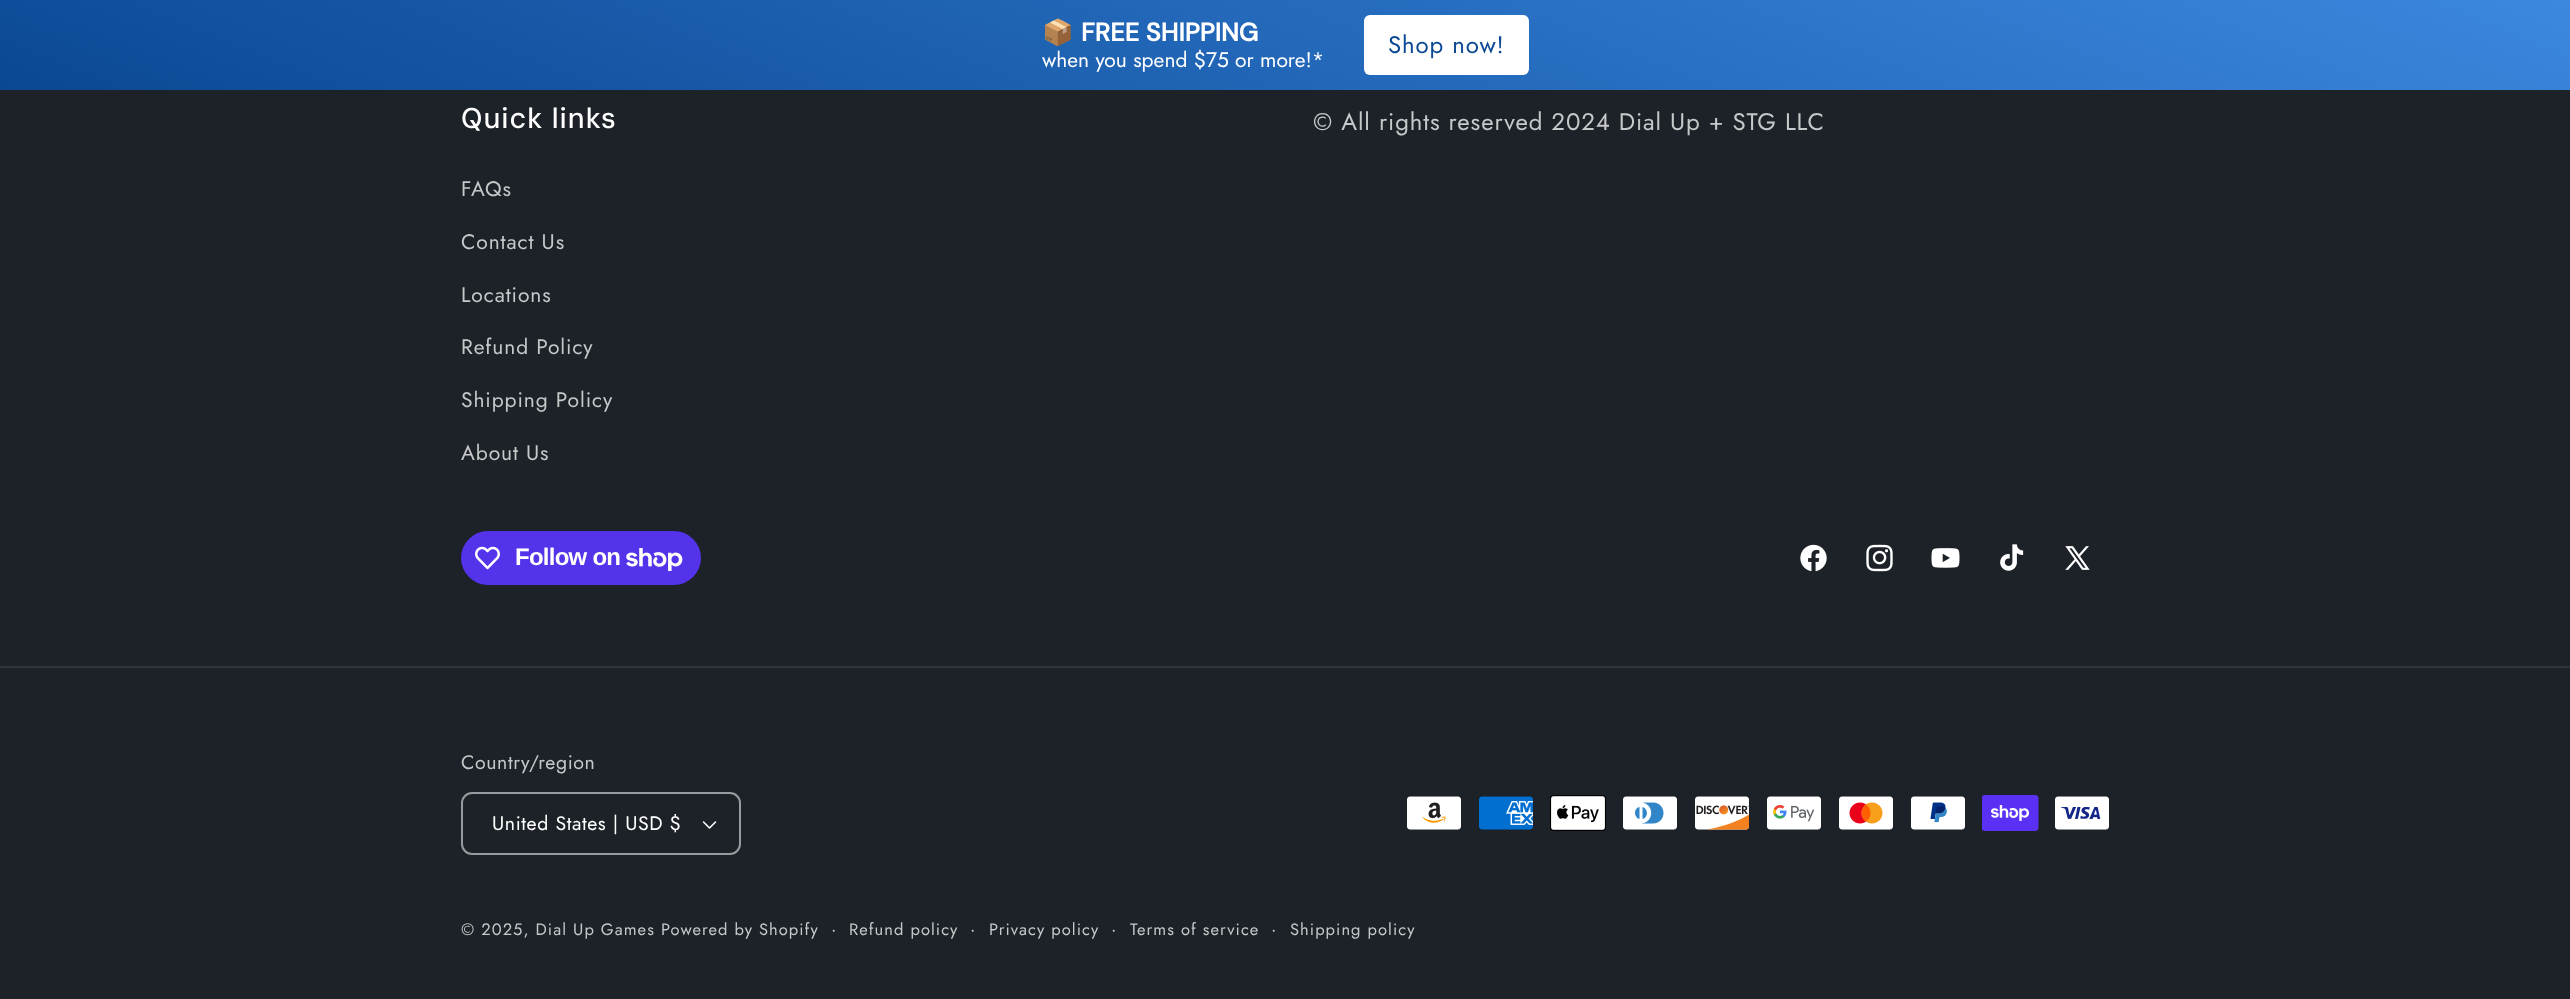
<svg xmlns="http://www.w3.org/2000/svg" width="2570" height="999" viewBox="0 0 2570 999">
  <defs>
    <linearGradient id="g1" gradientUnits="userSpaceOnUse" x1="1089" y1="530" x2="1482" y2="-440"><stop offset="0" stop-color="#0a4893"/><stop offset="1" stop-color="#3c88df"/></linearGradient>
    <clipPath id="clip1"><path d="M1043 17h282v57H1043z"/></clipPath>
  </defs>
  <rect width="100%" height="100%" fill="#1c2228"/>
  <path d="M0 0h2570v90H0z" fill="url(#g1)"/>
  <rect x="1364" y="15" width="165" height="60" rx="6" fill="#fff"/>
  <rect x="461" y="531" width="240" height="54" rx="27" fill="#5433eb"/>
  <image x="475" y="546" width="25" height="24" href="img/1.png"/>
  <image x="626" y="548" width="57" height="23" href="img/2.png"/>
  <image x="1800" y="544" width="27" height="28" href="img/3.png"/>
  <image x="1866" y="544" width="27" height="28" href="img/4.png"/>
  <image x="1931" y="548" width="29" height="20" href="img/5.png"/>
  <image x="2000" y="544" width="24" height="27" href="img/6.png"/>
  <image x="2065" y="546" width="25" height="24" href="img/7.png"/>
  <path d="M0 666h2570v2H0z" fill="#2e3439"/>
  <image x="702" y="821" width="15" height="8" href="img/8.png"/>
  <rect x="462" y="793" width="278" height="61" rx="10" fill="none" stroke="#999c9e" stroke-width="2"/>
  <image x="1407" y="796" width="54" height="34" href="img/9.png"/>
  <image x="1479" y="796" width="54" height="34" href="img/10.png"/>
  <image x="1550" y="795" width="57" height="36" href="img/11.png"/>
  <image x="1623" y="796" width="54" height="34" href="img/12.png"/>
  <image x="1695" y="796" width="55" height="34" href="img/13.png"/>
  <image x="1767" y="796" width="54" height="34" href="img/14.png"/>
  <image x="1839" y="796" width="54" height="34" href="img/15.png"/>
  <image x="1911" y="796" width="54" height="34" href="img/16.png"/>
  <image x="1982" y="795" width="57" height="36" href="img/17.png"/>
  <image x="2055" y="796" width="54" height="34" href="img/18.png"/>
  <g clip-path="url(#clip1)">
    <text x="1042" y="41" font-family="Noto Color Emoji" font-size="25.5" font-weight="bold" fill="#fff">📦</text>
  </g>
  <text x="1081" y="41" font-family="DM Sans" font-size="25.5" font-weight="bold" fill="#fff">FREE SHIPPING</text>
  <text x="1042" y="67" font-family="Jost" font-size="21" fill="#fff">when you spend $75 or more!*</text>
  <text x="1388" y="53" font-family="Jost" font-size="24" letter-spacing="0.9" fill="#0a4893">Shop now!</text>
  <text x="461" y="128" font-family="DM Sans" font-size="28.5" font-weight="500" letter-spacing="1" fill="#fff">Quick links</text>
  <g font-family="Jost" font-size="21" letter-spacing="0.9" fill="#c6c8c9">
    <text x="461" y="196">FAQs</text>
    <text x="461" y="249">Contact Us</text>
    <text x="461" y="302">Locations</text>
    <text x="461" y="354">Refund Policy</text>
    <text x="461" y="407">Shipping Policy</text>
    <text x="461" y="460">About Us</text>
  </g>
  <text x="1313" y="130" font-family="Jost" font-size="24" letter-spacing="0.9" fill="#c6c8c9">© All rights reserved 2024 Dial Up + STG LLC</text>
  <text x="515" y="565" font-family="Liberation Sans" font-size="24" font-weight="bold" letter-spacing="-0.75" fill="#fff">Follow on</text>
  <text x="461" y="769" font-family="Jost" font-size="19.5" letter-spacing="0.6" fill="#c6c8c9">Country/region</text>
  <text x="492" y="830" font-family="Jost" font-size="19.5" letter-spacing="0.6" fill="#fff">United States | USD $</text>
  <g font-family="Jost" font-size="16.5" letter-spacing="1.05" fill="#c6c8c9">
    <text x="461" y="935">© 2025, Dial Up Games</text>
    <text x="661" y="935">Powered by Shopify</text>
  </g>
  <text x="831" y="935" font-family="Jost" font-size="18" letter-spacing="1.05" fill="#c6c8c9">·</text>
  <text x="849" y="935" font-family="Jost" font-size="16.5" letter-spacing="1.05" fill="#c6c8c9">Refund policy</text>
  <text x="970" y="935" font-family="Jost" font-size="18" letter-spacing="1.05" fill="#c6c8c9">·</text>
  <text x="989" y="935" font-family="Jost" font-size="16.5" letter-spacing="1.05" fill="#c6c8c9">Privacy policy</text>
  <text x="1111" y="935" font-family="Jost" font-size="18" letter-spacing="1.05" fill="#c6c8c9">·</text>
  <text x="1130" y="935" font-family="Jost" font-size="16.5" letter-spacing="1.05" fill="#c6c8c9">Terms of service</text>
  <text x="1271" y="935" font-family="Jost" font-size="18" letter-spacing="1.05" fill="#c6c8c9">·</text>
  <text x="1290" y="935" font-family="Jost" font-size="16.5" letter-spacing="1.05" fill="#c6c8c9">Shipping policy</text>
</svg>
